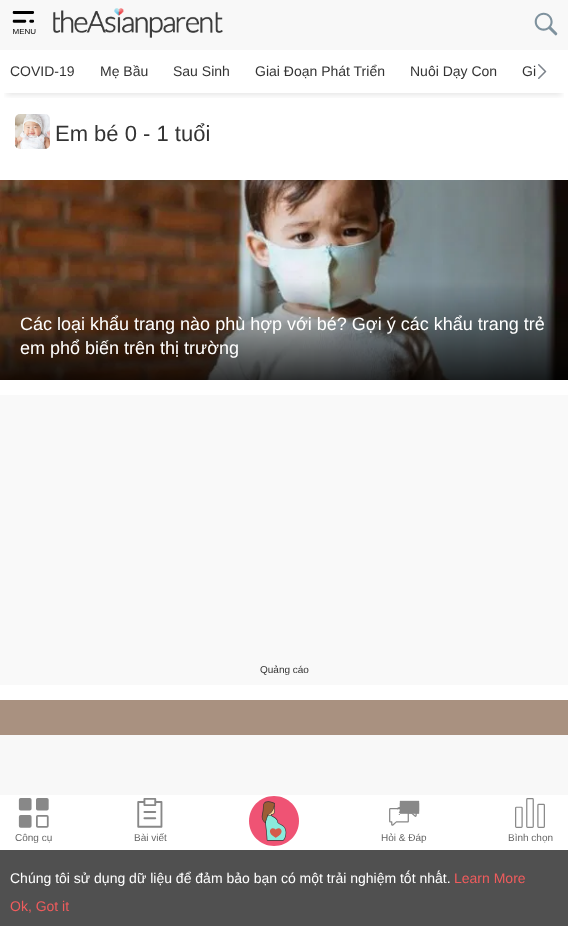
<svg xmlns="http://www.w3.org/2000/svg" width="568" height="926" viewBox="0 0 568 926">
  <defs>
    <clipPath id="clip1"><path d="M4 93h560v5H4z"/></clipPath>
  </defs>
  <rect width="100%" height="100%" fill="#fff"/>
  <g clip-path="url(#clip1)">
    <path d="M6 14h556v81H6z" fill="#0000001a" filter="blur(3px)"/>
  </g>
  <path d="M0 0h568v50H0z" fill="#f8f8f8"/>
  <image x="12" y="11" width="24" height="23" href="img/1.png"/>
  <image x="53" y="8" width="170" height="30" href="img/2.png"/>
  <image x="534" y="12" width="24" height="24" href="img/3.png"/>
  <image x="538" y="64" width="9" height="15" href="img/4.png"/>
  <image x="15" y="114" width="35" height="35" href="img/5.png"/>
  <image x="0" y="180" width="568" height="200" href="img/6.png"/>
  <path d="M0 395h568v290H0z" fill="#f9f9f9"/>
  <path d="M0 700h568v35H0z" fill="#a99180"/>
  <path d="M0 735h568v60H0z" fill="#f8f8f8"/>
  <image x="18" y="798" width="31" height="30" href="img/7.png"/>
  <image x="137" y="798" width="26" height="30" href="img/8.png"/>
  <image x="249" y="796" width="50" height="50" href="img/9.png"/>
  <image x="389" y="800" width="31" height="26" href="img/10.png"/>
  <image x="515" y="798" width="30" height="30" href="img/11.png"/>
  <path d="M0 850h568v76H0z" fill="#505050"/>
  <g font-family="Liberation Sans" font-size="14" fill="#333">
    <text x="10" y="76">COVID-19</text>
    <text x="100" y="76">Mẹ Bầu</text>
    <text x="173" y="76">Sau Sinh</text>
    <text x="255" y="76">Giai Đoạn Phát Triển</text>
    <text x="410" y="76">Nuôi Dạy Con</text>
    <text x="522" y="76">Gi</text>
  </g>
  <text x="55" y="141" font-family="Liberation Sans" font-size="22" fill="#333">Em bé 0 - 1 tuổi</text>
  <g font-family="Liberation Sans" font-size="18" fill="#fff">
    <text x="20" y="330">Các loại khẩu trang nào phù hợp với bé? Gợi ý các khẩu trang trẻ</text>
    <text x="20" y="354">em phổ biến trên thị trường</text>
  </g>
  <text x="260" y="673" font-family="Liberation Sans" font-size="10" fill="#333">Quảng cáo</text>
  <g font-family="Liberation Sans" font-size="10" fill="#666">
    <text x="15" y="841">Công cụ</text>
    <text x="134" y="841">Bài viết</text>
    <text x="381" y="841">Hỏi &amp; Đáp</text>
    <text x="508" y="841">Bình chọn</text>
  </g>
  <text x="10" y="883" font-family="Liberation Sans" font-size="14" fill="#fff">Chúng tôi sử dụng dữ liệu để đảm bảo bạn có một trải nghiệm tốt nhất.</text>
  <g font-family="Liberation Sans" font-size="14" fill="#f05c5d">
    <text x="454" y="883">Learn More</text>
    <text x="10" y="911">Ok, Got it</text>
  </g>
</svg>
